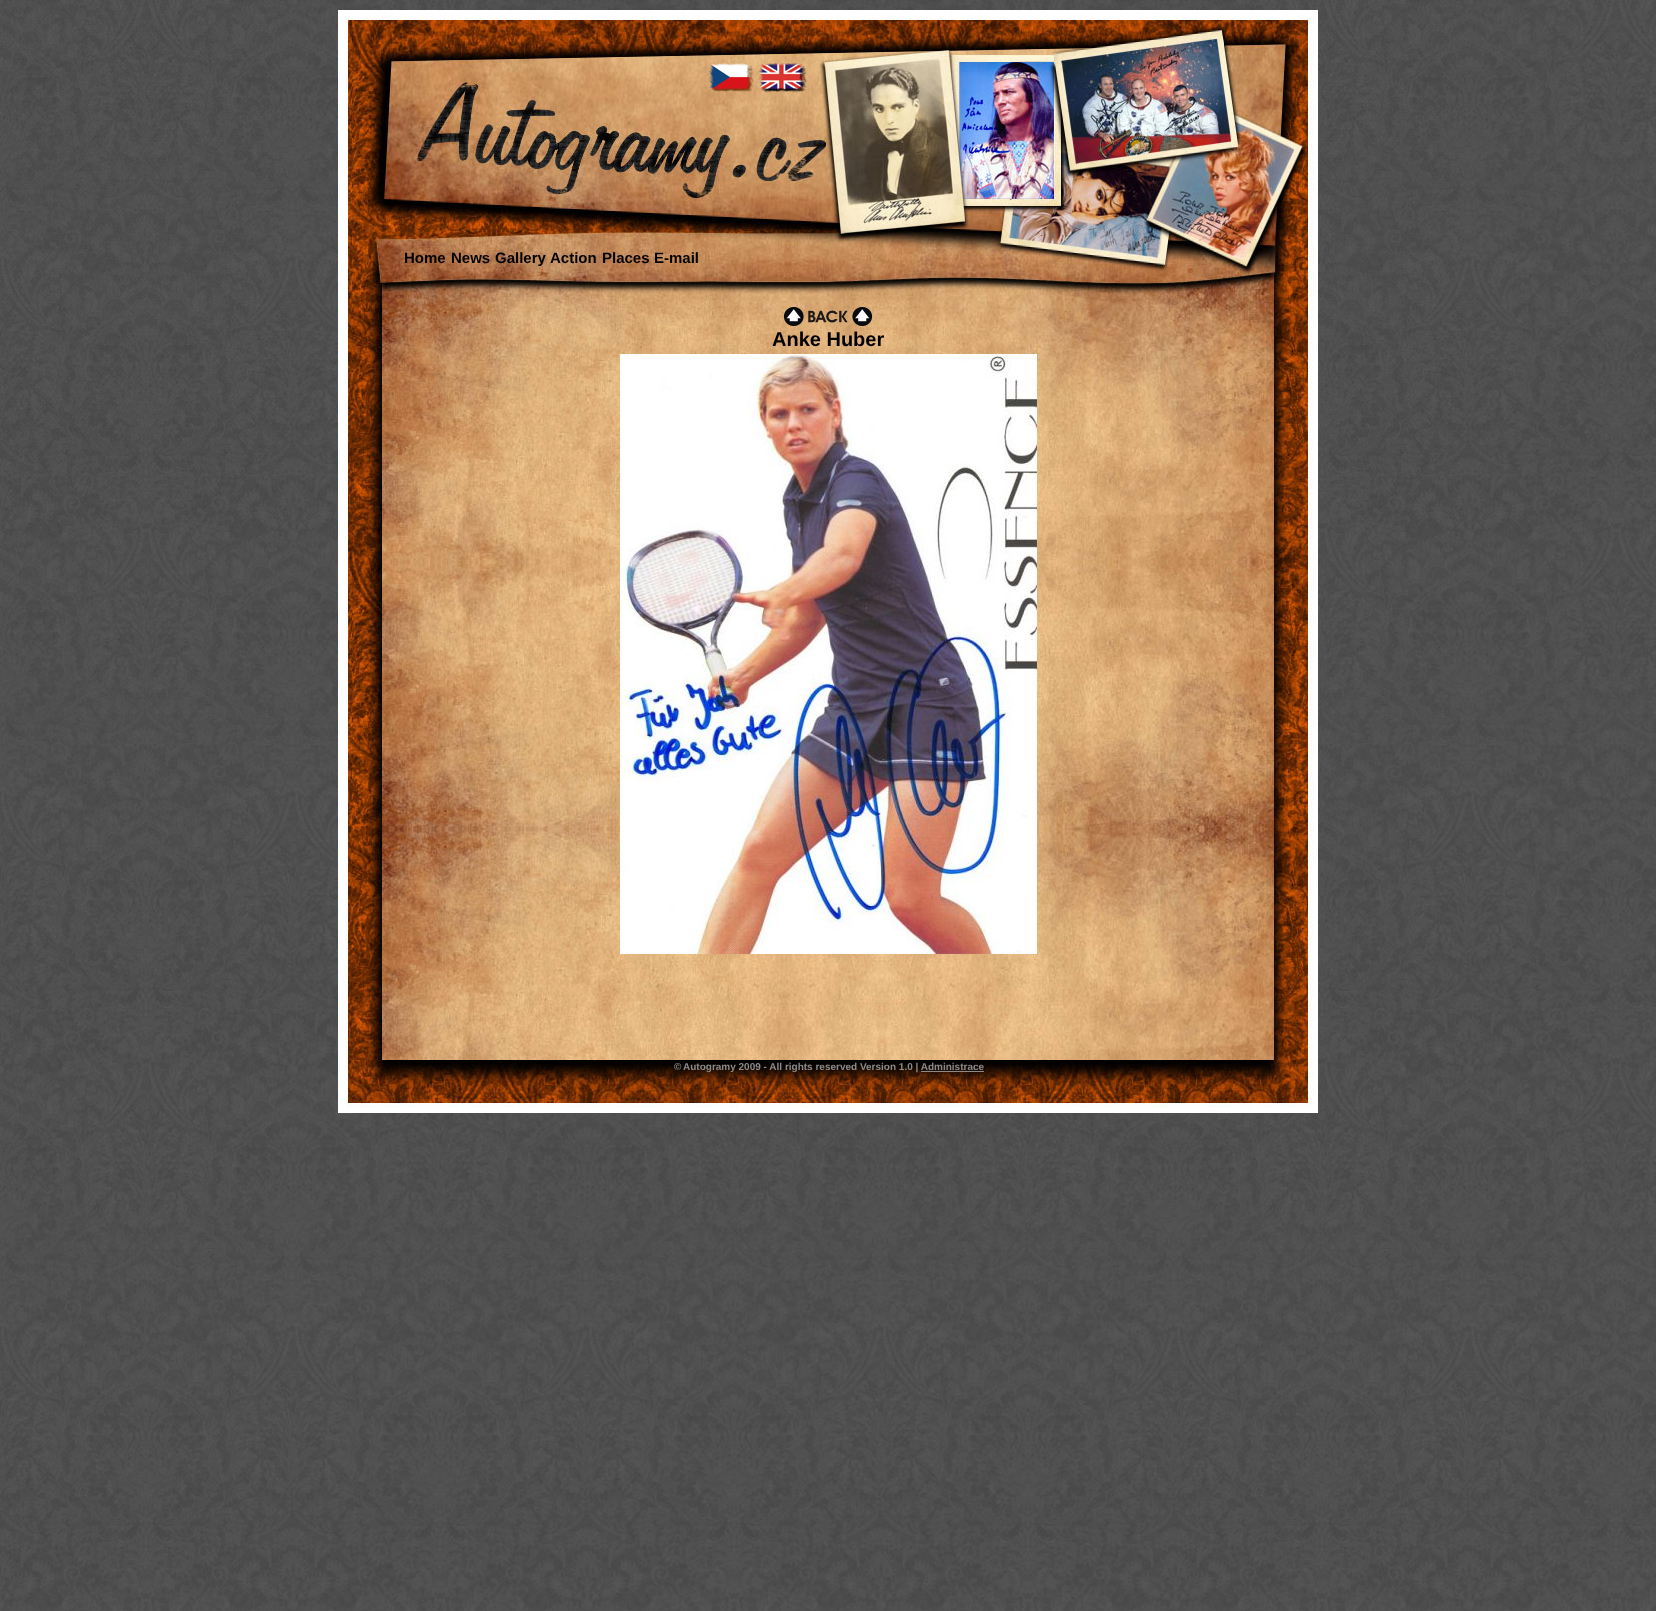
<svg xmlns="http://www.w3.org/2000/svg" width="1656" height="1611" viewBox="0 0 1656 1611">
  <rect width="100%" height="100%" fill="#fff"/>
  <image x="0" y="0" width="1656" height="1611" href="img/1.png"/>
  <image x="338" y="10" width="980" height="219" href="img/2.png"/>
  <image x="707" y="63" width="47" height="30" href="img/3.png"/>
  <image x="758" y="63" width="49" height="30" href="img/4.png"/>
  <image x="338" y="229" width="980" height="66" href="img/5.png"/>
  <image x="338" y="295" width="980" height="765" href="img/6.png"/>
  <image x="783" y="306" width="90" height="21" href="img/7.png"/>
  <image x="620" y="354" width="417" height="600" href="img/8.png"/>
  <image x="338" y="1060" width="980" height="53" href="img/9.png"/>
  <path d="M921 1071h63v1H921z" fill="#8b8b8b"/>
  <g font-family="Liberation Sans" font-size="15" font-weight="bold" fill="#000">
    <text x="404" y="263">Home</text>
    <text x="451" y="263">News</text>
    <text x="495" y="263">Gallery</text>
    <text x="550" y="263">Action</text>
    <text x="602" y="263">Places</text>
    <text x="654" y="263">E-mail</text>
  </g>
  <text x="772" y="346" font-family="Liberation Sans" font-size="20" font-weight="bold" fill="#000">Anke Huber</text>
  <g font-family="Liberation Sans" font-size="10" font-weight="bold" fill="#8b8b8b">
    <text x="674" y="1070">©</text>
    <text x="683" y="1070">Autogramy 2009 - All rights reserved Version 1.0 | Administrace</text>
  </g>
</svg>
